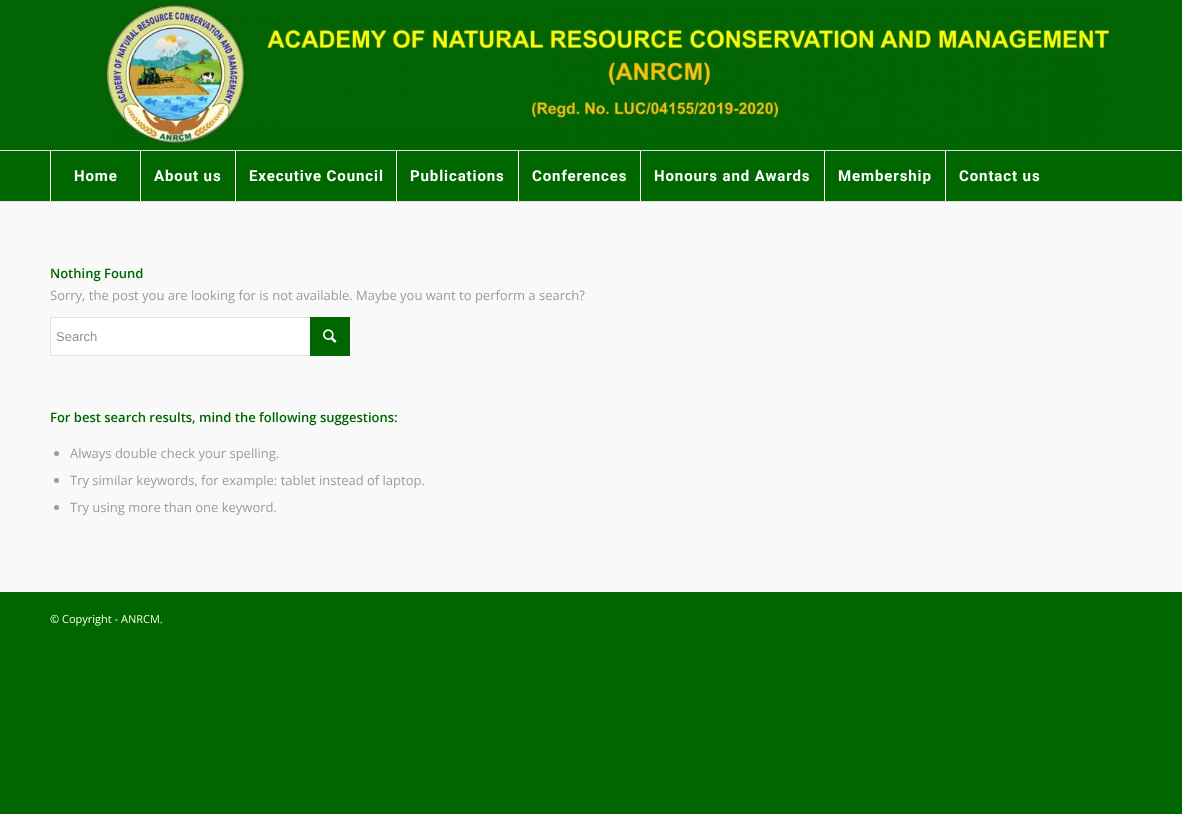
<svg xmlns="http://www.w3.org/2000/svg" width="1182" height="814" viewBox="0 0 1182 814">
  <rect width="100%" height="100%" fill="#060"/>
  <path d="M0 0h1182v150H0z" fill="#036403"/>
  <path d="M0 201h1182v1H0z" fill="#e1e1e1"/>
  <image x="106" y="4" width="1004" height="140" href="img/1.png"/>
  <path d="M0 150h1182v1H0z" fill="#e1e1e1"/>
  <path d="M50 151h1v50H50z" fill="#fff"/>
  <path d="M140 151h1v50H140z" fill="#fff"/>
  <path d="M235 151h1v50H235z" fill="#fff"/>
  <path d="M396 151h1v50H396z" fill="#fff"/>
  <path d="M518 151h1v50H518z" fill="#fff"/>
  <path d="M640 151h1v50H640z" fill="#fff"/>
  <path d="M824 151h1v50H824z" fill="#fff"/>
  <path d="M945 151h1v50H945z" fill="#fff"/>
  <path d="M0 202h1182v390H0z" fill="#f9f9f9"/>
  <path d="M51 318h259v37H51z" fill="#fff"/>
  <path d="M50.5 317.5h299v38H50.5z" fill="none" stroke="#e1e1e1"/>
  <path d="M310 317h40v39H310z" fill="#060"/>
  <image x="323" y="329" width="14" height="14" href="img/2.png"/>
  <circle cx="56.5" cy="453.5" r="2.5" fill="#9c9c9c"/>
  <circle cx="56.5" cy="480.5" r="2.5" fill="#9c9c9c"/>
  <circle cx="56.5" cy="507.5" r="2.5" fill="#9c9c9c"/>
  <g font-family="Roboto" font-size="15" font-weight="bold" letter-spacing="0.9" fill="#fff">
    <text x="74" y="181">Home</text>
    <text x="154" y="181">About us</text>
    <text x="249" y="181">Executive Council</text>
    <text x="410" y="181">Publications</text>
    <text x="532" y="181">Conferences</text>
    <text x="654" y="181">Honours and Awards</text>
    <text x="838" y="181">Membership</text>
    <text x="959" y="181">Contact us</text>
  </g>
  <text x="50" y="278" font-family="Open Sans" font-size="13" font-weight="600" fill="#060">Nothing Found</text>
  <text x="50" y="300" font-family="Open Sans" font-size="13" fill="#9c9c9c">Sorry, the post you are looking for is not available. Maybe you want to perform a search?</text>
  <text x="56" y="341" font-family="Liberation Sans" font-size="13" fill="#919191">Search</text>
  <text x="50" y="422" font-family="Open Sans" font-size="13" font-weight="600" fill="#060">For best search results, mind the following suggestions:</text>
  <g font-family="Open Sans" font-size="13" fill="#9c9c9c">
    <text x="70" y="458">Always double check your spelling.</text>
    <text x="70" y="485">Try similar keywords, for example: tablet instead of laptop.</text>
    <text x="70" y="512">Try using more than one keyword.</text>
  </g>
  <text x="50" y="623" font-family="Open Sans" font-size="11" fill="#f3ffde">© Copyright - ANRCM.</text>
</svg>
